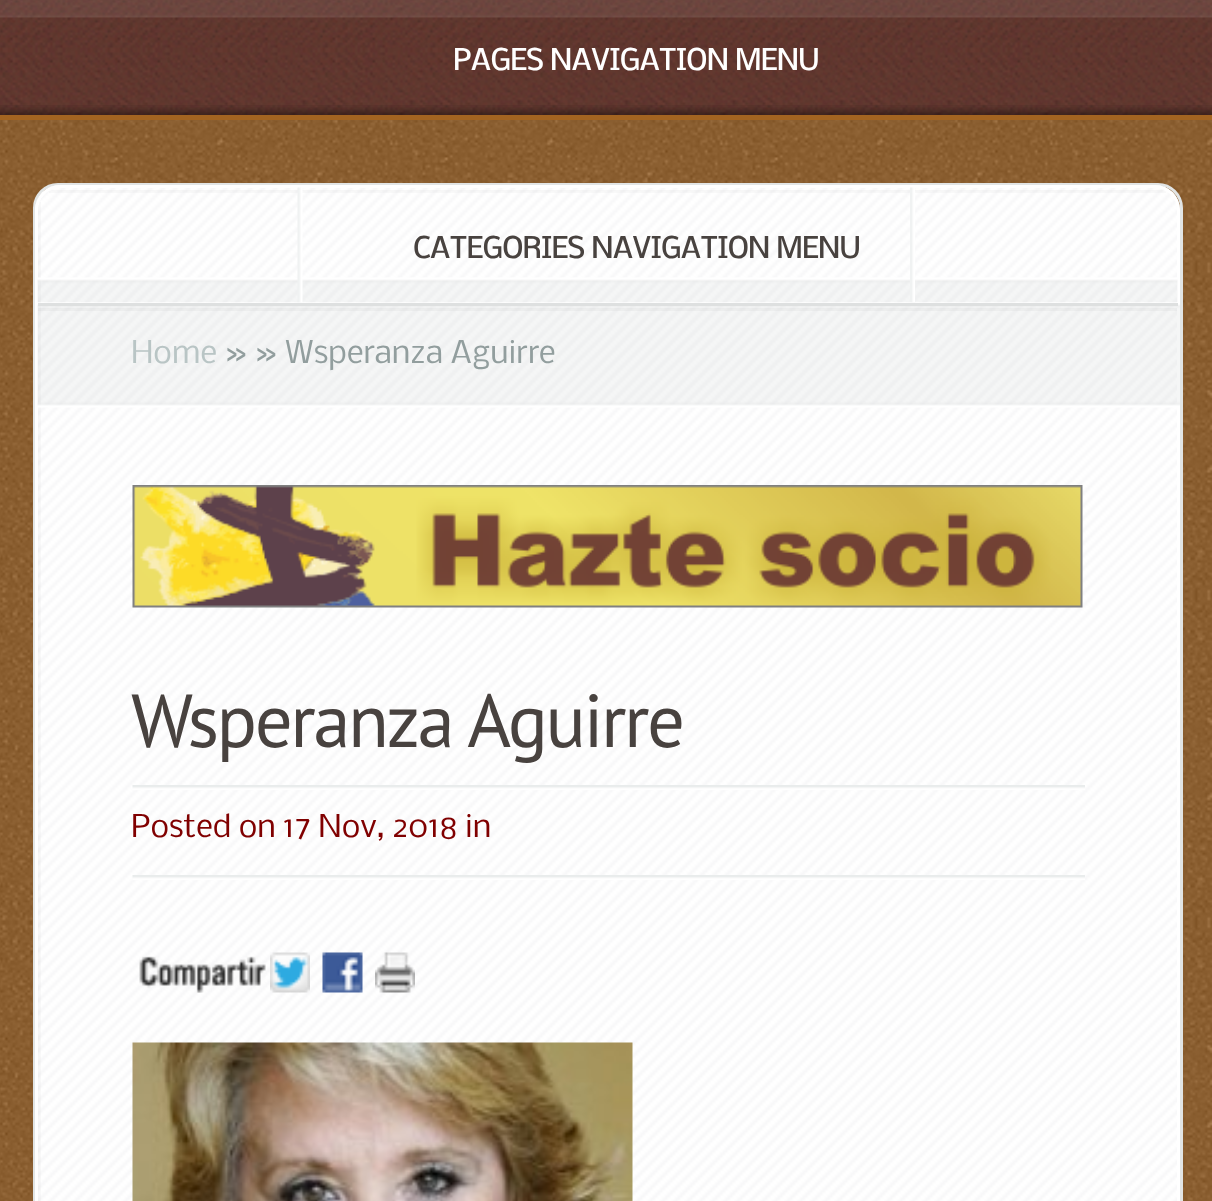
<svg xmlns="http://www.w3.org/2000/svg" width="1212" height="1201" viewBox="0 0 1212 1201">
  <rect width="100%" height="100%" fill="#fff"/>
  <image x="0" y="0" width="1212" height="115" href="img/1.png"/>
  <image x="0" y="0" width="1212" height="18" href="img/2.png"/>
  <image x="0" y="105" width="1212" height="10" href="img/3.png"/>
  <path d="M0 115h1212v1086H0z" fill="#a36421"/>
  <image x="0" y="120" width="1212" height="1081" href="img/4.png"/>
  <rect x="34.5" y="184.5" width="1147" height="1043" rx="23.5" fill="none" stroke="#e2e5e5" stroke-width="3"/>
  <image x="35" y="185" width="1145" height="1016" href="img/5.png"/>
  <rect x="36.5" y="186.5" width="1142" height="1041" rx="23.5" fill="none" stroke="#fff" stroke-width="3"/>
  <image x="38" y="202" width="3" height="999" href="img/6.png"/>
  <image x="49" y="190" width="1117" height="3" href="img/7.png"/>
  <image x="37" y="277" width="1141" height="26" href="img/8.png"/>
  <image x="297" y="187" width="6" height="116" href="img/9.png"/>
  <image x="910" y="187" width="5" height="115" href="img/10.png"/>
  <image x="37" y="302" width="1143" height="106" href="img/11.png"/>
  <path d="M38 308h1139v3H38z" fill="#00000008"/>
  <path d="M38 303h1140v3H38z" fill="#dee0e0"/>
  <image x="132" y="485" width="951" height="123" href="img/12.png"/>
  <image x="132" y="785" width="953" height="5" href="img/13.png"/>
  <image x="132" y="875" width="953" height="5" href="img/14.png"/>
  <image x="139" y="956" width="127" height="37" href="img/15.png"/>
  <image x="270" y="952" width="40" height="41" href="img/16.png"/>
  <image x="322" y="952" width="41" height="41" href="img/17.png"/>
  <image x="375" y="952" width="40" height="41" href="img/18.png"/>
  <image x="132" y="1042" width="501" height="159" href="img/19.png"/>
  <text x="453" y="70" font-family="Nobile" font-size="27.5" font-weight="bold" fill="#fff">PAGES NAVIGATION MENU</text>
  <text x="413" y="258" font-family="Nobile" font-size="27.5" font-weight="bold" fill="#48423f">CATEGORIES NAVIGATION MENU</text>
  <text x="131" y="363" font-family="Nobile" font-size="30" fill="#b9c5c5">Home</text>
  <text x="225" y="363" font-family="Nobile" font-size="30" fill="#929e9e">» » Wsperanza Aguirre</text>
  <text x="131" y="747" font-family="PT Sans" font-size="75" letter-spacing="-2.5" fill="#48423f">Wsperanza Aguirre</text>
  <text x="131" y="837" font-family="Nobile" font-size="30" fill="#800000">Posted on 17 Nov, 2018 in</text>
</svg>
